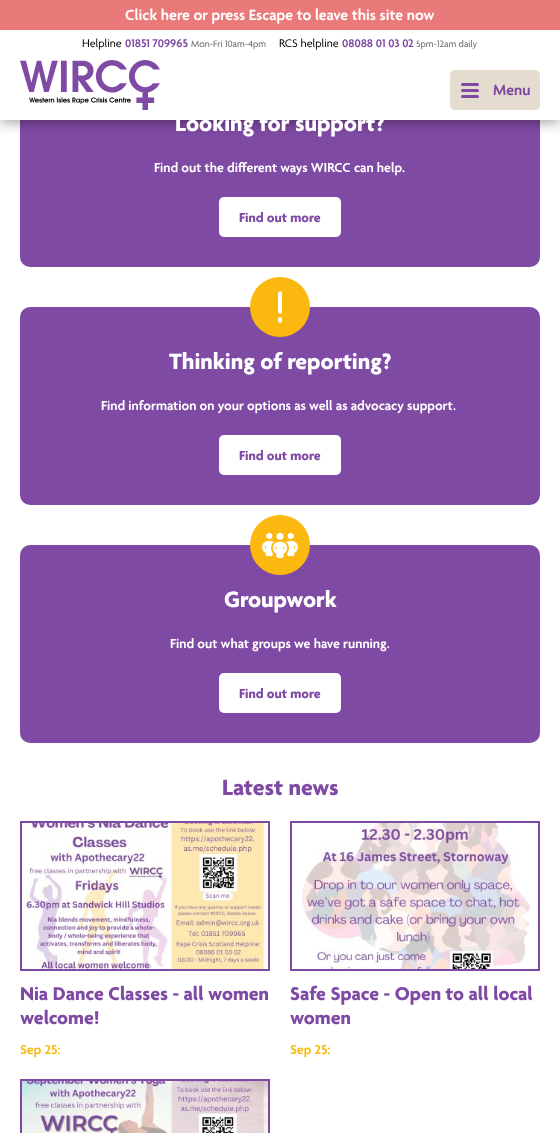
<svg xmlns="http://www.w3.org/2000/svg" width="560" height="1133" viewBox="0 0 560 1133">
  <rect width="100%" height="100%" fill="#fff"/>
  <rect x="20" y="69" width="520" height="198" rx="10" fill="#7f4aa4"/>
  <path d="M0 0h560v120H0z" fill="#00000080" filter="blur(7.5px)"/>
  <path d="M0 0h560v30H0z" fill="#ea7a7a"/>
  <path d="M0 30h560v90H0z" fill="#fff"/>
  <image x="20" y="60" width="140" height="50" href="img/1.png"/>
  <rect x="450" y="70" width="90" height="40" rx="5" fill="#e4dccf"/>
  <rect x="461" y="83" width="18" height="3" rx="1.5" fill="#7f4aa4"/>
  <rect x="461" y="89" width="18" height="3" rx="1.5" fill="#7f4aa4"/>
  <rect x="461" y="95" width="18" height="3" rx="1.5" fill="#7f4aa4"/>
  <rect x="219" y="197" width="122" height="40" rx="5" fill="#fff"/>
  <rect x="20" y="307" width="520" height="198" rx="10" fill="#7f4aa4"/>
  <circle cx="280" cy="307" r="30" fill="#fbb80f"/>
  <image x="278" y="291" width="4" height="32" href="img/2.png"/>
  <rect x="219" y="435" width="122" height="40" rx="5" fill="#fff"/>
  <rect x="20" y="545" width="520" height="198" rx="10" fill="#7f4aa4"/>
  <circle cx="280" cy="545" r="30" fill="#fbb80f"/>
  <image x="262" y="532" width="36" height="26" href="img/3.png"/>
  <rect x="219" y="673" width="122" height="40" rx="5" fill="#fff"/>
  <path d="M20 821h250v150H20z" fill="#7f4aa4"/>
  <image x="22" y="823" width="246" height="146" href="img/4.png"/>
  <path d="M290 821h250v150H290z" fill="#7f4aa4"/>
  <image x="292" y="823" width="246" height="146" href="img/5.png"/>
  <path d="M20 1079h250v54H20z" fill="#7f4aa4"/>
  <image x="22" y="1081" width="246" height="52" href="img/6.png"/>
  <text x="125" y="20" font-family="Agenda" font-size="16" font-weight="600" fill="#fff">Click here or press Escape to leave this site now</text>
  <text x="82" y="47" font-family="Agenda" font-size="12" fill="#000">Helpline</text>
  <text x="125" y="47" font-family="Agenda" font-size="12" font-weight="600" fill="#7f4aa4">01851 709965</text>
  <text x="191" y="47" font-family="Agenda" font-size="10" fill="#666">Mon-Fri 10am-4pm</text>
  <text x="279" y="47" font-family="Agenda" font-size="12" fill="#000">RCS helpline</text>
  <text x="342" y="47" font-family="Agenda" font-size="12" font-weight="600" fill="#7f4aa4">08088 01 03 02</text>
  <text x="416" y="47" font-family="Agenda" font-size="10" fill="#666">5pm-12am daily</text>
  <text x="493" y="95" font-family="Agenda" font-size="16" font-weight="600" fill="#7f4aa4">Menu</text>
  <text x="175" y="131" font-family="Agenda" font-size="24" font-weight="bold" fill="#fff">Looking for support?</text>
  <text x="154" y="172" font-family="Agenda" font-size="14" font-weight="600" fill="#fff">Find out the different ways WIRCC can help.</text>
  <text x="239" y="222" font-family="Agenda" font-size="14" font-weight="bold" fill="#7f4aa4">Find out more</text>
  <text x="169" y="369" font-family="Agenda" font-size="24" font-weight="bold" fill="#fff">Thinking of reporting?</text>
  <text x="101" y="410" font-family="Agenda" font-size="14" font-weight="600" fill="#fff">Find information on your options as well as advocacy support.</text>
  <text x="239" y="460" font-family="Agenda" font-size="14" font-weight="bold" fill="#7f4aa4">Find out more</text>
  <text x="224" y="607" font-family="Agenda" font-size="24" font-weight="bold" fill="#fff">Groupwork</text>
  <text x="170" y="648" font-family="Agenda" font-size="14" font-weight="600" fill="#fff">Find out what groups we have running.</text>
  <text x="239" y="698" font-family="Agenda" font-size="14" font-weight="bold" fill="#7f4aa4">Find out more</text>
  <text x="222" y="795" font-family="Agenda" font-size="24" font-weight="bold" fill="#7f4aa4">Latest news</text>
  <g font-family="Agenda" font-size="20" font-weight="bold" fill="#7f4aa4">
    <text x="20" y="1000">Nia Dance Classes - all women</text>
    <text x="20" y="1024">welcome!</text>
  </g>
  <text x="20" y="1054" font-family="Agenda" font-size="14" font-weight="600" fill="#fbb80f">Sep 25:</text>
  <g font-family="Agenda" font-size="20" font-weight="bold" fill="#7f4aa4">
    <text x="290" y="1000">Safe Space - Open to all local</text>
    <text x="290" y="1024">women</text>
  </g>
  <text x="290" y="1054" font-family="Agenda" font-size="14" font-weight="600" fill="#fbb80f">Sep 25:</text>
</svg>
